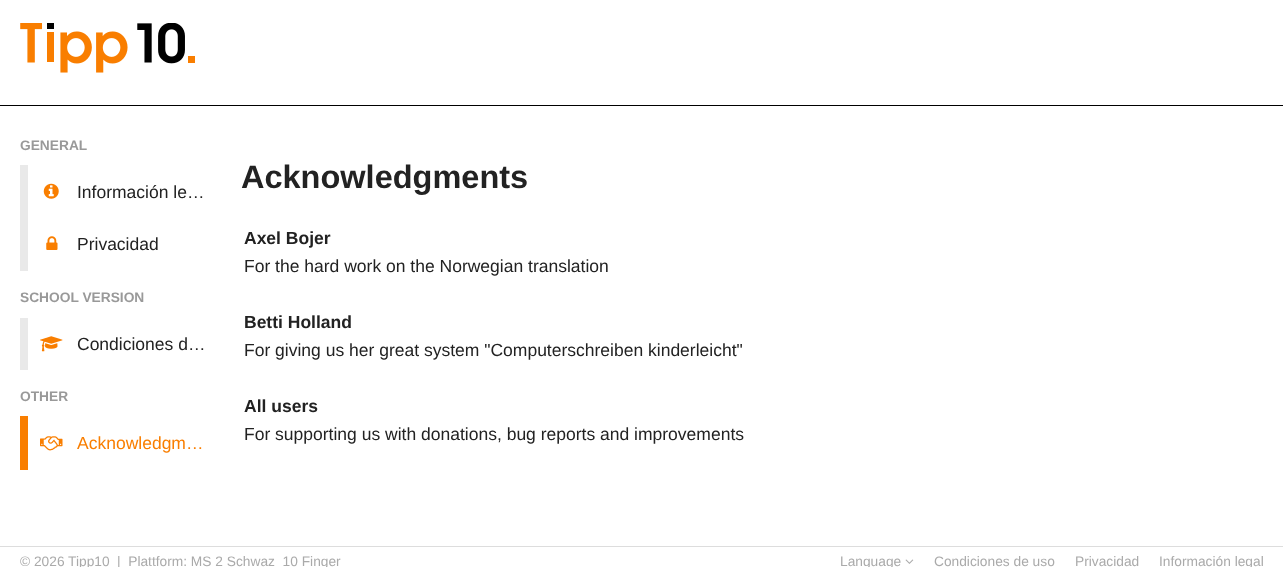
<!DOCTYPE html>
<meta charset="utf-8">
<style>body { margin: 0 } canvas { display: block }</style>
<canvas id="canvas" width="1283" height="567"></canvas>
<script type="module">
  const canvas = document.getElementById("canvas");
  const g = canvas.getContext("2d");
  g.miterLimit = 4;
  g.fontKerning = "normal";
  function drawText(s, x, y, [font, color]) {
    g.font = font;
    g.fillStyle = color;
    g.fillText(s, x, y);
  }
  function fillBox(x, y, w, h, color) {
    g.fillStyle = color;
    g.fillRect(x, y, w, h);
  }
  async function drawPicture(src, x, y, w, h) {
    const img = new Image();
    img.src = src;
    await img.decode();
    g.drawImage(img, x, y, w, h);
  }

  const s1 = ["bold 13.75px Liberation Sans", "#999999"];
  const s2 = ["17.5px Liberation Sans", "#222222"];
  const s3 = ["17.5px Liberation Sans", "#F97E00"];
  const s4 = ["bold 32.5px Liberation Sans", "#222222"];
  const s5 = ["bold 17.5px Liberation Sans", "#222222"];
  const s6 = ["13.75px Liberation Sans", "#AAAAAA"];

  fillBox(0, 0, 1283, 567, "#FFFFFF");
  await drawPicture("pic1.png", 20, 23, 175, 50);
  fillBox(0, 105, 1283, 1, "#000000");
  drawText("GENERAL", 20, 150, s1);
  fillBox(20, 165, 8, 106, "#E9E9E9");
  await drawPicture("pic2.png", 43, 183, 16, 16);
  drawText("Información le…", 77, 198, s2);
  await drawPicture("pic3.png", 46, 236, 12, 14);
  drawText("Privacidad", 77, 250, s2);
  drawText("SCHOOL VERSION", 20, 302, s1);
  fillBox(20, 318, 8, 52, "#E9E9E9");
  await drawPicture("pic4.png", 40, 336, 23, 16);
  drawText("Condiciones d…", 77, 350, s2);
  drawText("OTHER", 20, 401, s1);
  fillBox(20, 416, 8, 54, "#F97E00");
  await drawPicture("pic5.png", 40, 436, 23, 15);
  drawText("Acknowledgm…", 77, 449, s3);
  drawText("Acknowledgments", 241, 188, s4);
  drawText("Axel Bojer", 244, 244, s5);
  drawText("For the hard work on the Norwegian translation", 244, 272, s2);
  drawText("Betti Holland", 244, 328, s5);
  drawText("For giving us her great system \"Computerschreiben kinderleicht\"", 244, 356, s2);
  drawText("All users", 244, 412, s5);
  drawText("For supporting us with donations, bug reports and improvements", 244, 440, s2);
  fillBox(0, 546, 1283, 1, "#DDDDDD");
  drawText("© 2026 Tipp10", 20, 566, s6);
  drawText("|  Plattform: MS 2 Schwaz_10 Finger", 117, 566, s6);
  drawText("Language", 840, 566, s6);
  await drawPicture("pic6.png", 905, 559, 9, 5);
  drawText("Condiciones de uso", 934, 566, s6);
  drawText("Privacidad", 1075, 566, s6);
  drawText("Información legal", 1159, 566, s6);
</script>
